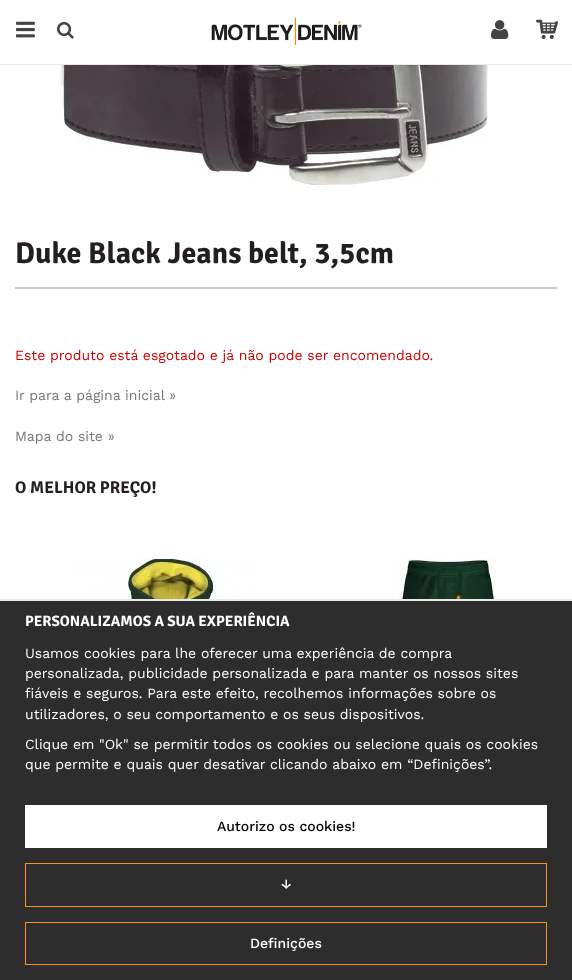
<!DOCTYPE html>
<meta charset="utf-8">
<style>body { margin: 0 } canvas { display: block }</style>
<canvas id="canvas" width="572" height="980"></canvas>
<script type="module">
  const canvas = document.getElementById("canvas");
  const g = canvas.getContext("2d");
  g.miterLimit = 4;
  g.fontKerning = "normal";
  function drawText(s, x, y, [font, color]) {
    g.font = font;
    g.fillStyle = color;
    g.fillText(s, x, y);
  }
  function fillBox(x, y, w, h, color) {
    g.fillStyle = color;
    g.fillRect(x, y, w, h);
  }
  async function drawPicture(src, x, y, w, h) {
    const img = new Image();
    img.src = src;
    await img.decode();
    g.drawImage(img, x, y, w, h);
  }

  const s1 = ["bold 30px Signika Negative", "#231F20"];
  const s2 = ["14px Work Sans", "#CC0000"];
  const s3 = ["14px Work Sans", "#777777"];
  const s4 = ["bold 17px Signika Negative", "#231F20"];
  const s5 = ["bold 15px Signika Negative", "#FFFFFF"];
  const s6 = ["14px Work Sans", "#FFFFFF"];
  const s7 = ["500 14px Work Sans", "#000000"];
  const s8 = ["500 14px Work Sans", "#FFFFFF"];

  fillBox(0, 0, 572, 980, "#FFFFFF");
  fillBox(0, 64, 572, 1, "#E9E9E9");
  await drawPicture("pic1.png", 16, 21, 19, 17);
  await drawPicture("pic2.png", 57, 21, 17, 18);
  await drawPicture("pic3.png", 211, 17, 151, 29);
  await drawPicture("pic4.png", 491, 20, 18, 19);
  await drawPicture("pic5.png", 536, 19, 22, 20);
  await drawPicture("pic6.png", 60, 65, 429, 123);
  drawText("Duke Black Jeans belt, 3,5cm", 15, 263, s1);
  fillBox(15, 287, 542, 2, "#CCCCCC");
  drawText("Este produto está esgotado e já não pode ser encomendado.", 15, 360, s2);
  drawText("Ir para a página inicial »", 15, 400, s3);
  drawText("Mapa do site »", 15, 441, s3);
  drawText("O MELHOR PREÇO!", 15, 493, s4);
  await drawPicture("pic7.png", 76, 559, 181, 40);
  await drawPicture("pic8.png", 399, 559, 98, 40);
  fillBox(0, 601, 572, 379, "#2D2D2D");
  fillBox(0, 599, 572, 2, "#E9E9E9");
  drawText("PERSONALIZAMOS A SUA EXPERIÊNCIA", 25, 626, s5);
  drawText("Usamos cookies para lhe oferecer uma experiência de compra", 25, 658, s6);
  drawText("personalizada, publicidade personalizada e para manter os nossos sites", 25, 678, s6);
  drawText("fiáveis e seguros. Para este efeito, recolhemos informações sobre os", 25, 698, s6);
  drawText("utilizadores, o seu comportamento e os seus dispositivos.", 25, 719, s6);
  drawText("Clique em \"Ok\" se permitir todos os cookies ou selecione quais os cookies", 25, 749, s6);
  drawText("que permite e quais quer desativar clicando abaixo em “Definições”.", 25, 769, s6);
  fillBox(25, 805, 522, 43, "#FFFFFF");
  drawText("Autorizo os cookies!", 217, 831, s7);
  g.strokeStyle = "#F7921C";
  g.strokeRect(25.5, 863.5, 521, 43);
  drawText("↓", 281, 889, s8);
  g.strokeRect(25.5, 922.5, 521, 42);
  drawText("Definições", 250, 948, s8);
</script>
